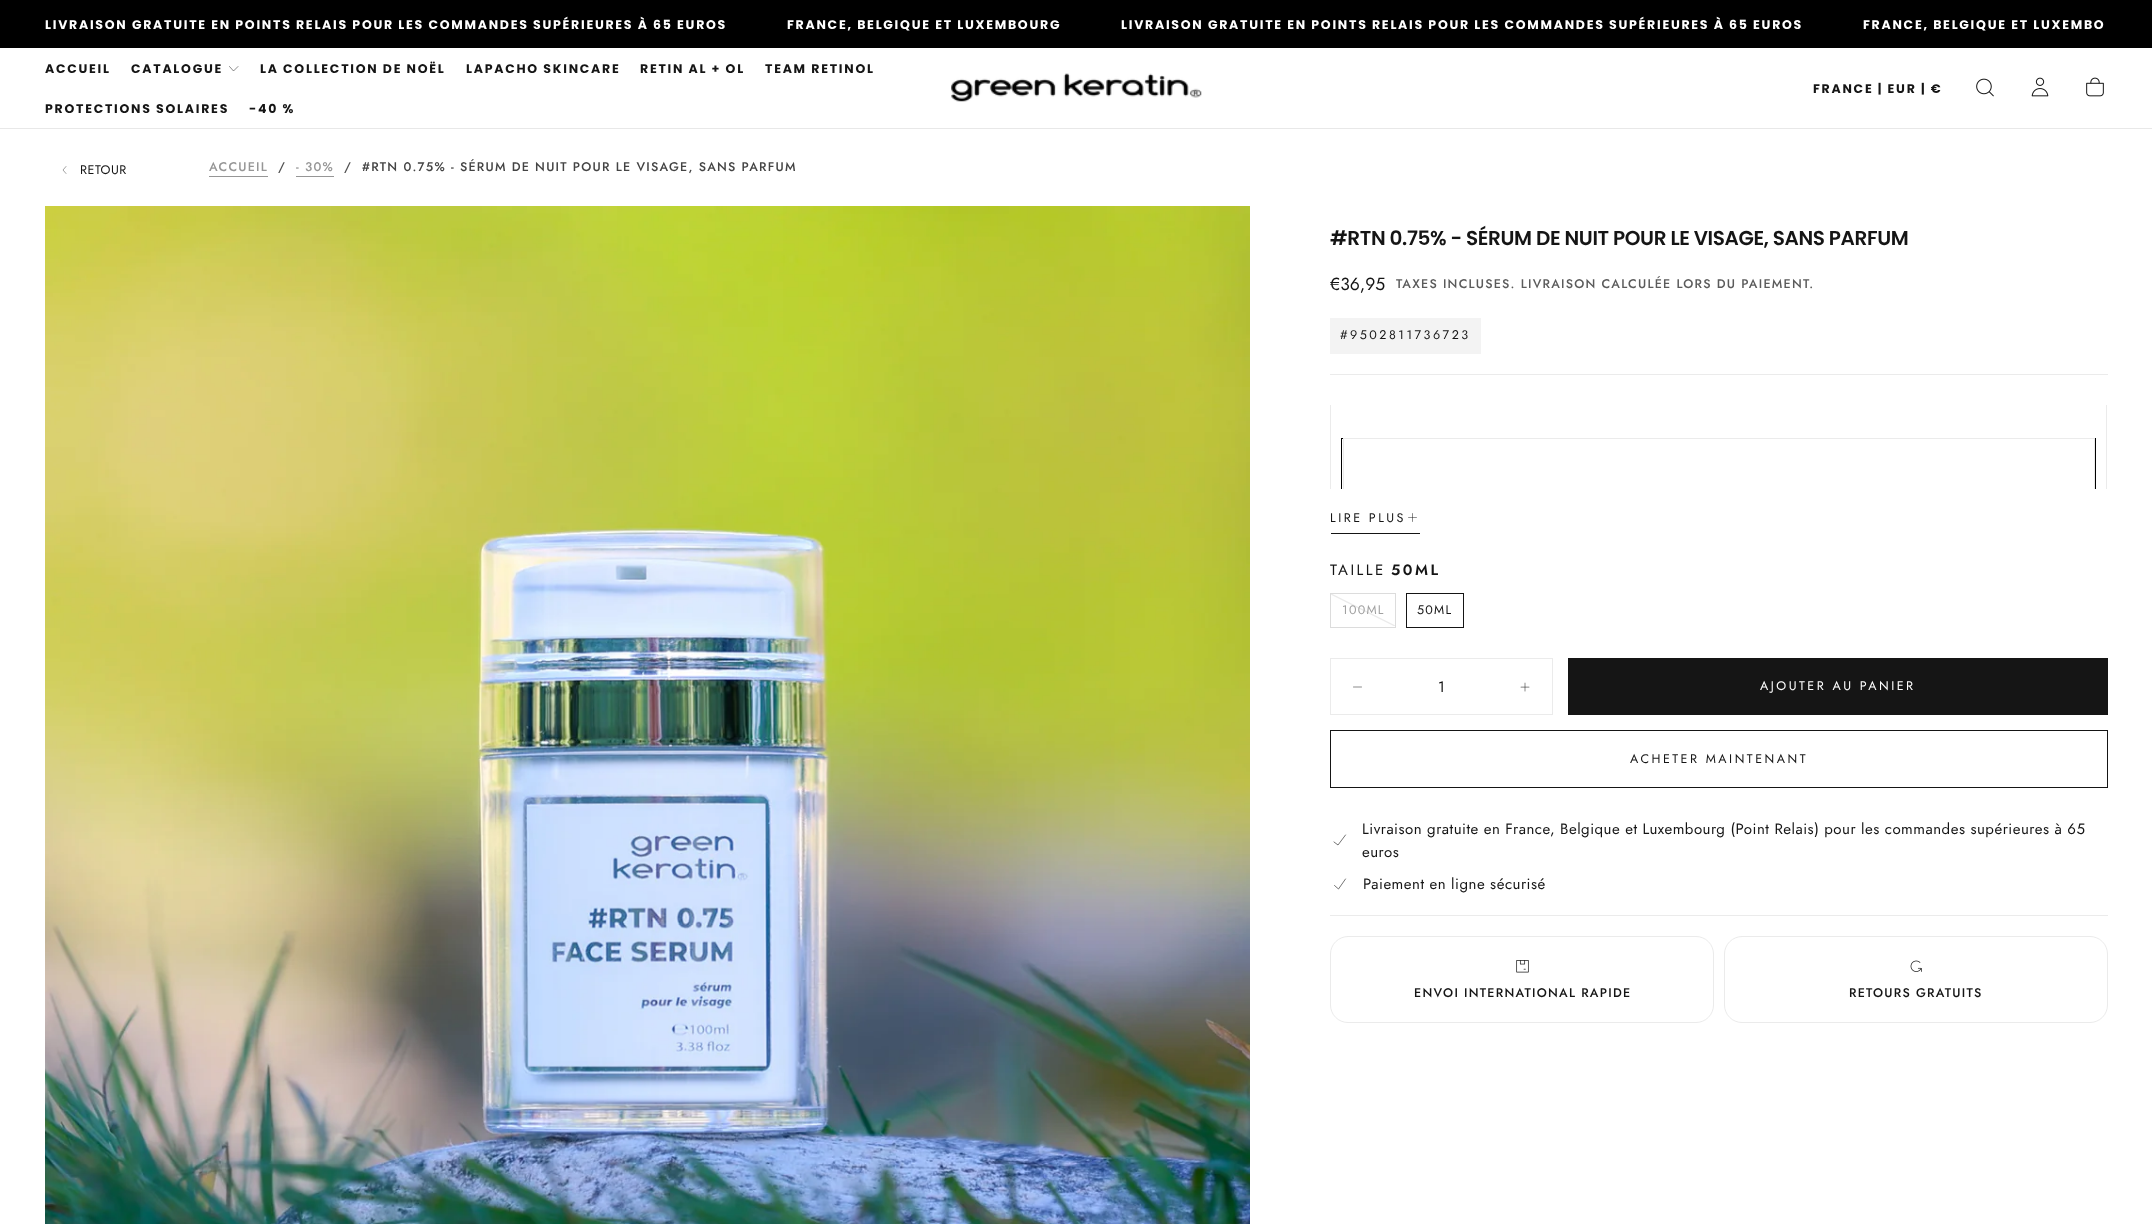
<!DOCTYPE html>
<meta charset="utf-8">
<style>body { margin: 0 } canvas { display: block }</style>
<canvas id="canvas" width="2152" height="1224"></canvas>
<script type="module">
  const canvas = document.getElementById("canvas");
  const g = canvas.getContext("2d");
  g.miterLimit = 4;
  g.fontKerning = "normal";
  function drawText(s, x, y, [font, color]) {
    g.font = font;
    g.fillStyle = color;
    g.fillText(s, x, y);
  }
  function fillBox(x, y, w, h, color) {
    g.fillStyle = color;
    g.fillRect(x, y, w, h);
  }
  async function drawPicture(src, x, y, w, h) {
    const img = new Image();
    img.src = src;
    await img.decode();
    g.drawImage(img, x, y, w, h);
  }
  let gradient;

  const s1 = ["bold 12.5px Poppins", "#FFFFFF"];
  const s2 = ["bold 12.5px Poppins", "#151515"];
  const s3 = ["12.5px Jost", "#151515"];
  const s4 = ["500 12.5px Jost", "#969696"];
  const s5 = ["500 12.5px Jost", "#505050"];
  const s6 = ["500 12.5px Jost", "#444444"];
  const s7 = ["600 20px Poppins", "#151515"];
  const s8 = ["17.5px Jost", "#151515"];
  const s9 = ["500 12.5px Jost", "#5B5B5B"];
  const s10 = ["15px Jost", "#151515"];
  const s11 = ["600 15px Jost", "#151515"];
  const s12 = ["12.5px Jost", "#A1A1A1"];
  const s13 = ["12.5px Jost", "#FFFFFF"];
  const s14 = ["500 12.5px Jost", "#151515"];

  fillBox(0, 0, 2152, 1224, "#FFFFFF");
  fillBox(0, 0, 2152, 48, "#000000");
  g.letterSpacing = "1.75px";
  drawText("LIVRAISON GRATUITE EN POINTS RELAIS POUR LES COMMANDES SUPÉRIEURES À 65 EUROS", 45, 29, s1);
  drawText("FRANCE, BELGIQUE ET LUXEMBOURG", 787, 29, s1);
  drawText("LIVRAISON GRATUITE EN POINTS RELAIS POUR LES COMMANDES SUPÉRIEURES À 65 EUROS", 1121, 29, s1);
  drawText("FRANCE, BELGIQUE ET LUXEMBO", 1863, 29, s1);
  fillBox(0, 128, 2152, 1, "#E8E8E8");
  drawText("ACCUEIL", 45, 73, s2);
  drawText("CATALOGUE", 131, 73, s2);
  g.beginPath();
  g.moveTo(238, 66.5);
  g.lineTo(233.5, 71);
  g.lineTo(229.5, 66.5);
  g.strokeStyle = "#151515";
  g.lineWidth = 0.5;
  g.lineCap = "round";
  g.lineJoin = "round";
  g.stroke();
  drawText("LA COLLECTION DE NOËL", 260, 73, s2);
  drawText("LAPACHO SKINCARE", 466, 73, s2);
  drawText("RETIN AL + OL", 640, 73, s2);
  drawText("TEAM RETINOL", 765, 73, s2);
  drawText("PROTECTIONS SOLAIRES", 45, 113, s2);
  drawText("-40 %", 249, 113, s2);
  await drawPicture("pic1.png", 951, 73, 251, 29);
  drawText("FRANCE | EUR | €", 1813, 93, s2);
  await drawPicture("pic2.png", 1976, 78, 18, 19);
  await drawPicture("pic3.png", 2031, 77, 18, 20);
  await drawPicture("pic4.png", 2086, 77, 18, 20);
  g.beginPath();
  g.moveTo(66, 173.5);
  g.lineTo(63, 170);
  g.lineTo(66, 166.5);
  g.lineWidth = 0.4;
  g.stroke();
  g.letterSpacing = "0.5px";
  drawText("RETOUR", 80, 174, s3);
  g.letterSpacing = "1.25px";
  drawText("ACCUEIL", 209, 171, s4);
  fillBox(209, 176, 59, 1, "#969696");
  drawText("/", 278, 171, s5);
  drawText("- 30%", 296, 171, s4);
  fillBox(296, 176, 38, 1, "#969696");
  drawText("/", 344, 171, s5);
  drawText("#RTN 0.75% - SÉRUM DE NUIT POUR LE VISAGE, SANS PARFUM", 362, 171, s6);
  await drawPicture("pic5.png", 45, 206, 1205, 1018);
  g.letterSpacing = "-0.4px";
  drawText("#RTN 0.75% - SÉRUM DE NUIT POUR LE VISAGE, SANS PARFUM", 1330, 245, s7);
  g.letterSpacing = "0px";
  drawText("€36,95", 1330, 290, s8);
  g.letterSpacing = "1.25px";
  drawText("TAXES INCLUSES. LIVRAISON CALCULÉE LORS DU PAIEMENT.", 1396, 288, s9);
  fillBox(1330, 318, 151, 36, "#F3F3F3");
  g.letterSpacing = "2.5px";
  drawText("#9502811736723", 1340, 339, s3);
  fillBox(1330, 374, 778, 1, "#EBEBEB");
  fillBox(2106, 405, 1, 84, "#EBEBEB");
  fillBox(1330, 405, 1, 84, "#EBEBEB");
  drawText("TAILLE", 1330, 575, s10);
  g.save();
  g.beginPath();
  g.rect(1330, 405, 778, 84);
  g.clip();
  g.strokeStyle = "#000000";
  g.lineWidth = 1;
  g.lineJoin = "miter";
  g.strokeRect(1341.5, 438.5, 754, 181);
  g.restore();
  fillBox(1343, 438, 752, 1, "#EBEBEB");
  fillBox(2094, 438, 1, 51, "#EBEBEB");
  fillBox(1343, 438, 1, 51, "#EBEBEB");
  drawText("LIRE PLUS", 1330, 522, s3);
  await drawPicture("pic6.png", 1408, 513, 9, 9);
  fillBox(1331, 533, 89, 1, "#151515");
  drawText("50ML", 1391, 575, s11);
  g.strokeStyle = "#DCDCDC";
  g.lineWidth = 1;
  g.lineJoin = "miter";
  g.strokeRect(1330.5, 593.5, 65, 34);
  gradient = g.createLinearGradient(1350, 636, 1376, 584);
  gradient.addColorStop(0.48, "rgba(21, 21, 21, 0)");
  gradient.addColorStop(0.5, "rgba(21, 21, 21, 0.1)");
  gradient.addColorStop(0.52, "rgba(21, 21, 21, 0)");
  g.fillStyle = gradient;
  g.fillRect(1331, 594, 64, 32);
  g.letterSpacing = "1.25px";
  drawText("100ML", 1342, 614, s12);
  g.strokeStyle = "#151515";
  g.strokeRect(1406.5, 593.5, 57, 34);
  drawText("50ML", 1417, 614, s3);
  g.strokeStyle = "#EBEBEB";
  g.strokeRect(1330.5, 658.5, 222, 56);
  g.beginPath();
  g.moveTo(1353.5, 687);
  g.lineTo(1361.5, 687);
  g.strokeStyle = "#151515";
  g.lineWidth = 0.5;
  g.stroke();
  g.letterSpacing = "0px";
  drawText("1", 1438, 692, s10);
  await drawPicture("pic7.png", 1520, 682, 10, 10);
  fillBox(1568, 658, 540, 57, "#151515");
  g.letterSpacing = "2.5px";
  drawText("AJOUTER AU PANIER", 1760, 690, s13);
  g.lineWidth = 1;
  g.strokeRect(1330.5, 730.5, 777, 57);
  drawText("ACHETER MAINTENANT", 1630, 763, s3);
  g.beginPath();
  g.moveTo(1334, 842);
  g.lineTo(1338, 845);
  g.lineTo(1345.5, 835);
  g.moveTo(1334.5, 885.5);
  g.lineTo(1338.5, 889);
  g.lineTo(1345.5, 879);
  g.lineWidth = 0.6;
  g.lineJoin = "round";
  g.stroke();
  g.letterSpacing = "0.5px";
  drawText("Livraison gratuite en France, Belgique et Luxembourg (Point Relais) pour les commandes supérieures à 65", 1362, 834, s10);
  drawText("euros", 1362, 857, s10);
  drawText("Paiement en ligne sécurisé", 1363, 889, s10);
  fillBox(1330, 915, 778, 1, "#EBEBEB");
  g.beginPath();
  g.roundRect(1330.5, 936.5, 383, 86, 17.5);
  g.strokeStyle = "#EBEBEB";
  g.lineWidth = 1;
  g.lineJoin = "miter";
  g.stroke();
  await drawPicture("pic8.png", 1516, 960, 13, 13);
  g.letterSpacing = "1.25px";
  drawText("ENVOI INTERNATIONAL RAPIDE", 1414, 997, s14);
  g.beginPath();
  g.roundRect(1724.5, 936.5, 383, 86, 17.5);
  g.stroke();
  await drawPicture("pic9.png", 1910, 960, 12, 12);
  drawText("RETOURS GRATUITS", 1849, 997, s14);
</script>
